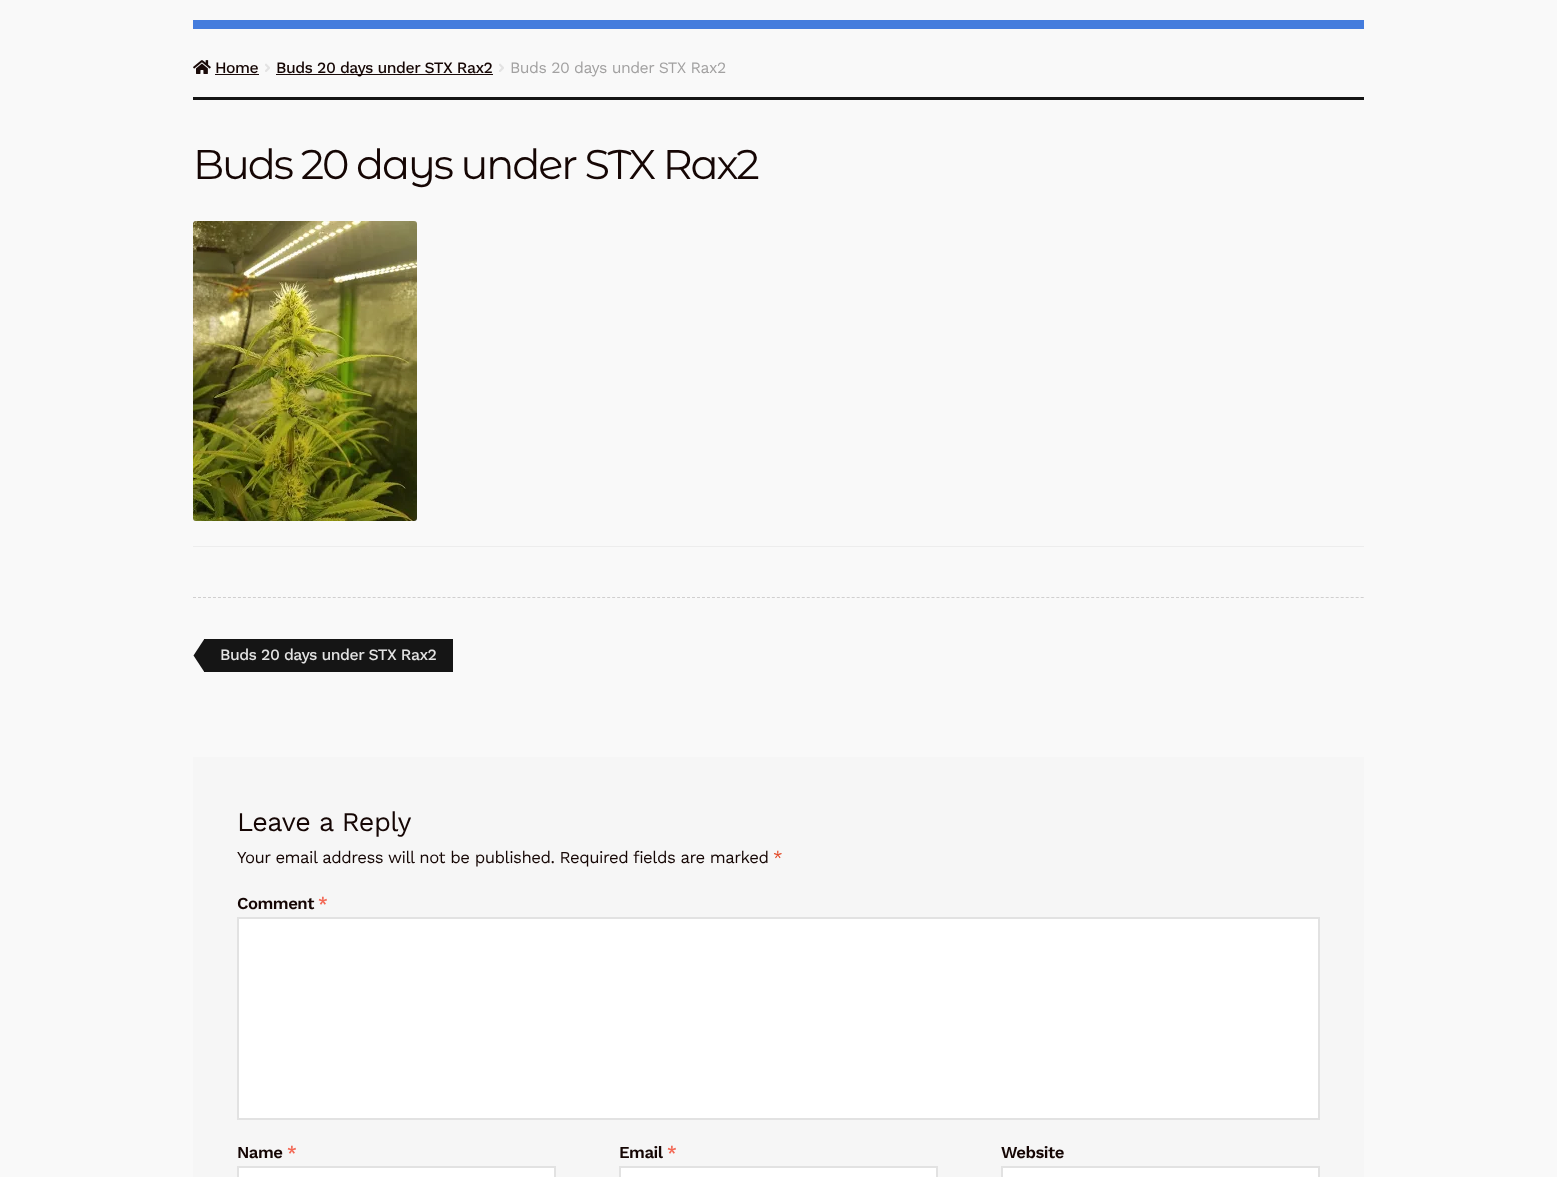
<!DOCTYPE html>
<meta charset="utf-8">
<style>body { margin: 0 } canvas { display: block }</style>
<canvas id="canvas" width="1557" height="1177"></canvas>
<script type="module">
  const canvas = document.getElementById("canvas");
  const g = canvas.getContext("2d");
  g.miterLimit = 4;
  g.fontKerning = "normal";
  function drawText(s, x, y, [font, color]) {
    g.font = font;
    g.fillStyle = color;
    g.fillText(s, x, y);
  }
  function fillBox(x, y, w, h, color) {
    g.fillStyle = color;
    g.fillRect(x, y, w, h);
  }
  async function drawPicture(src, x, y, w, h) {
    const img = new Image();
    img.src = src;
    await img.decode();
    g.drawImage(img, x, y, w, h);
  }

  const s1 = ["500 15.8px Work Sans", "#150604"];
  const s2 = ["15.8px Work Sans", "#A2A1A1"];
  const s3 = ["41.4px Montserrat Alternates", "#150604"];
  const s4 = ["500 15.8px Work Sans", "#E3E3E3"];
  const s5 = ["27px Work Sans", "#150604"];
  const s6 = ["16.75px Work Sans", "#150604"];
  const s7 = ["16.75px Work Sans", "#E2401C"];
  const s8 = ["600 16.75px Work Sans", "#150604"];
  const s9 = ["600 16.75px Work Sans", "#F36855"];

  fillBox(0, 0, 1557, 1177, "#F9F9F9");
  fillBox(193, 20, 1171, 9, "#447CDD");
  fillBox(193, 97, 1171, 3, "#151515");
  await drawPicture("pic1.png", 193, 60, 18, 14);
  g.letterSpacing = "-0.5px";
  drawText("Home", 215, 73, s1);
  fillBox(215, 74, 44, 1, "#1A0B09");
  await drawPicture("pic2.png", 265, 63, 5, 9);
  fillBox(276, 74, 217, 1, "#1A0B09");
  drawText("Buds 20 days under STX Rax2", 276, 73, s1);
  await drawPicture("pic2.png", 499, 63, 5, 9);
  drawText("Buds 20 days under STX Rax2", 510, 73, s2);
  g.letterSpacing = "-2.1px";
  drawText("Buds 20 days under STX Rax2", 193, 179, s3);
  await drawPicture("pic3.png", 193, 221, 224, 300);
  fillBox(193, 546, 1171, 1, "#EDEDED");
  g.beginPath();
  g.moveTo(193, 597.5);
  g.lineTo(1364, 597.5);
  g.strokeStyle = "#D0CFCF";
  g.setLineDash([3, 1.99]);
  g.stroke();
  fillBox(204, 639, 249, 33, "#151515");
  g.beginPath();
  g.moveTo(204, 639.5);
  g.lineTo(204, 671.5);
  g.lineTo(193.5, 655.5);
  g.closePath();
  g.fill();
  g.letterSpacing = "-0.5px";
  drawText("Buds 20 days under STX Rax2", 220, 660, s4);
  fillBox(193, 757, 1171, 420, "#F6F6F6");
  drawText("Leave a Reply", 237, 831, s5);
  drawText("Your email address will not be published. Required fields are marked", 237, 863, s6);
  drawText("*", 773, 863, s7);
  drawText("Comment", 237, 909, s8);
  drawText("*", 318, 909, s9);
  g.fillStyle = "#FFFFFF";
  g.beginPath();
  g.rect(238, 918, 1081, 201);
  g.fill();
  g.strokeStyle = "#E2E2E2";
  g.lineWidth = 2;
  g.setLineDash([]);
  g.stroke();
  drawText("Name", 237, 1158, s8);
  drawText("*", 287, 1158, s9);
  g.fillStyle = "#FFFFFF";
  g.beginPath();
  g.rect(238, 1167, 317, 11);
  g.fill();
  g.stroke();
  drawText("Email", 619, 1158, s8);
  drawText("*", 667, 1158, s9);
  g.fillStyle = "#FFFFFF";
  g.beginPath();
  g.rect(620, 1167, 317, 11);
  g.fill();
  g.stroke();
  drawText("Website", 1001, 1158, s8);
  g.fillStyle = "#FFFFFF";
  g.beginPath();
  g.rect(1002, 1167, 317, 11);
  g.fill();
  g.stroke();
</script>
